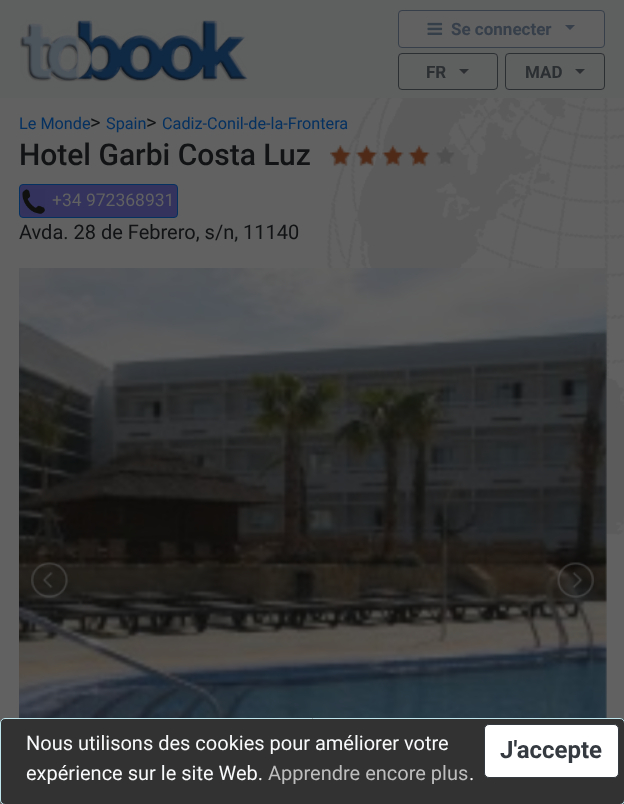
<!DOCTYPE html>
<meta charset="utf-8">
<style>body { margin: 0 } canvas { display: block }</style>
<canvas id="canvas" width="624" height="804"></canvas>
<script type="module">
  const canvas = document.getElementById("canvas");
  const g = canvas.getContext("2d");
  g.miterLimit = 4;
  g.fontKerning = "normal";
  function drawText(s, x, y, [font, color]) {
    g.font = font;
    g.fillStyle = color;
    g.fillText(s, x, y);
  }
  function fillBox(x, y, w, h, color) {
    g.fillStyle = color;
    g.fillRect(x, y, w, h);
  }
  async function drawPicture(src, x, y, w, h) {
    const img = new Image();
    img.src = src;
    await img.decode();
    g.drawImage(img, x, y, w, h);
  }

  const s1 = ["bold 17px Roboto", "#363F4A"];
  const s2 = ["bold 17px Roboto", "#2C2F32"];
  const s3 = ["16.25px Roboto", "#053161"];
  const s4 = ["20px Roboto", "#111314"];
  const s5 = ["500 30px Roboto", "#111314"];
  const s6 = ["17.5px Roboto", "#616161"];
  const s7 = ["20px Roboto", "#F8F9FA"];
  const s8 = ["bold 24px Roboto", "#343A40"];
  const s9 = ["20px Roboto", "#BEBEBE"];

  fillBox(0, 0, 624, 804, "#616161");
  await drawPicture("pic1.png", 326, 98, 298, 437);
  fillBox(0, 0, 624, 98, "#5E5F5F");
  await drawPicture("pic2.png", 20, 20, 228, 62);
  g.fillStyle = "#616161";
  g.beginPath();
  g.roundRect(398.5, 10.5, 206, 37, 3.5);
  g.fill();
  g.strokeStyle = "#363F4A";
  g.stroke();
  await drawPicture("pic3.png", 427, 22, 16, 13);
  drawText("Se connecter", 451, 35, s1);
  g.beginPath();
  g.moveTo(565, 25);
  g.lineTo(575, 25);
  g.lineTo(570, 30);
  g.closePath();
  g.fill();
  g.beginPath();
  g.roundRect(398.5, 53.5, 99, 36, 3.5);
  g.strokeStyle = "#2C2F32";
  g.stroke();
  drawText("FR", 426, 78, s2);
  g.beginPath();
  g.moveTo(459, 69);
  g.lineTo(469, 69);
  g.lineTo(464, 74);
  g.closePath();
  g.fill();
  g.beginPath();
  g.roundRect(505.5, 53.5, 99, 36, 3.5);
  g.stroke();
  drawText("MAD", 525, 78, s2);
  g.beginPath();
  g.moveTo(575, 69);
  g.lineTo(585, 69);
  g.lineTo(580, 74);
  g.closePath();
  g.fill();
  drawText("Le Monde", 19, 129, s3);
  drawText(">", 90, 129, s4);
  drawText("Spain", 106, 129, s3);
  drawText(">", 146, 129, s4);
  drawText("Cadiz-Conil-de-la-Frontera", 162, 129, s3);
  drawText("Hotel Garbi Costa Luz", 19, 165, s5);
  await drawPicture("pic4.png", 330, 145, 125, 22);
  g.fillStyle = "#33335E";
  g.beginPath();
  g.roundRect(19.5, 184.5, 158, 33, 3.5);
  g.fill();
  g.strokeStyle = "#053161";
  g.stroke();
  await drawPicture("pic5.png", 22, 189, 23, 25);
  drawText("+34 972368931", 52, 206, s6);
  drawText("Avda. 28 de Febrero, s/n, 11140", 19, 239, s4);
  await drawPicture("pic6.png", 19, 268, 588, 450);
  await drawPicture("pic7.png", 31, 562, 37, 36);
  await drawPicture("pic8.png", 557, 562, 37, 36);
  g.fillStyle = "#323232";
  g.beginPath();
  g.roundRect(0.5, 718.5, 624, 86, 4.5);
  g.fill();
  g.strokeStyle = "#BEE5EB";
  g.stroke();
  drawText("Nous utilisons des cookies pour améliorer votre", 26, 750, s7);
  g.fillStyle = "#FFFFFF";
  g.beginPath();
  g.roundRect(484.5, 724.5, 134, 53, 4.5);
  g.fill();
  g.strokeStyle = "#343A40";
  g.stroke();
  drawText("J'accepte", 500, 758, s8);
  drawText("expérience sur le site Web.", 26, 780, s7);
  drawText("Apprendre encore plus", 268, 780, s9);
  drawText(".", 469, 780, s7);
</script>
